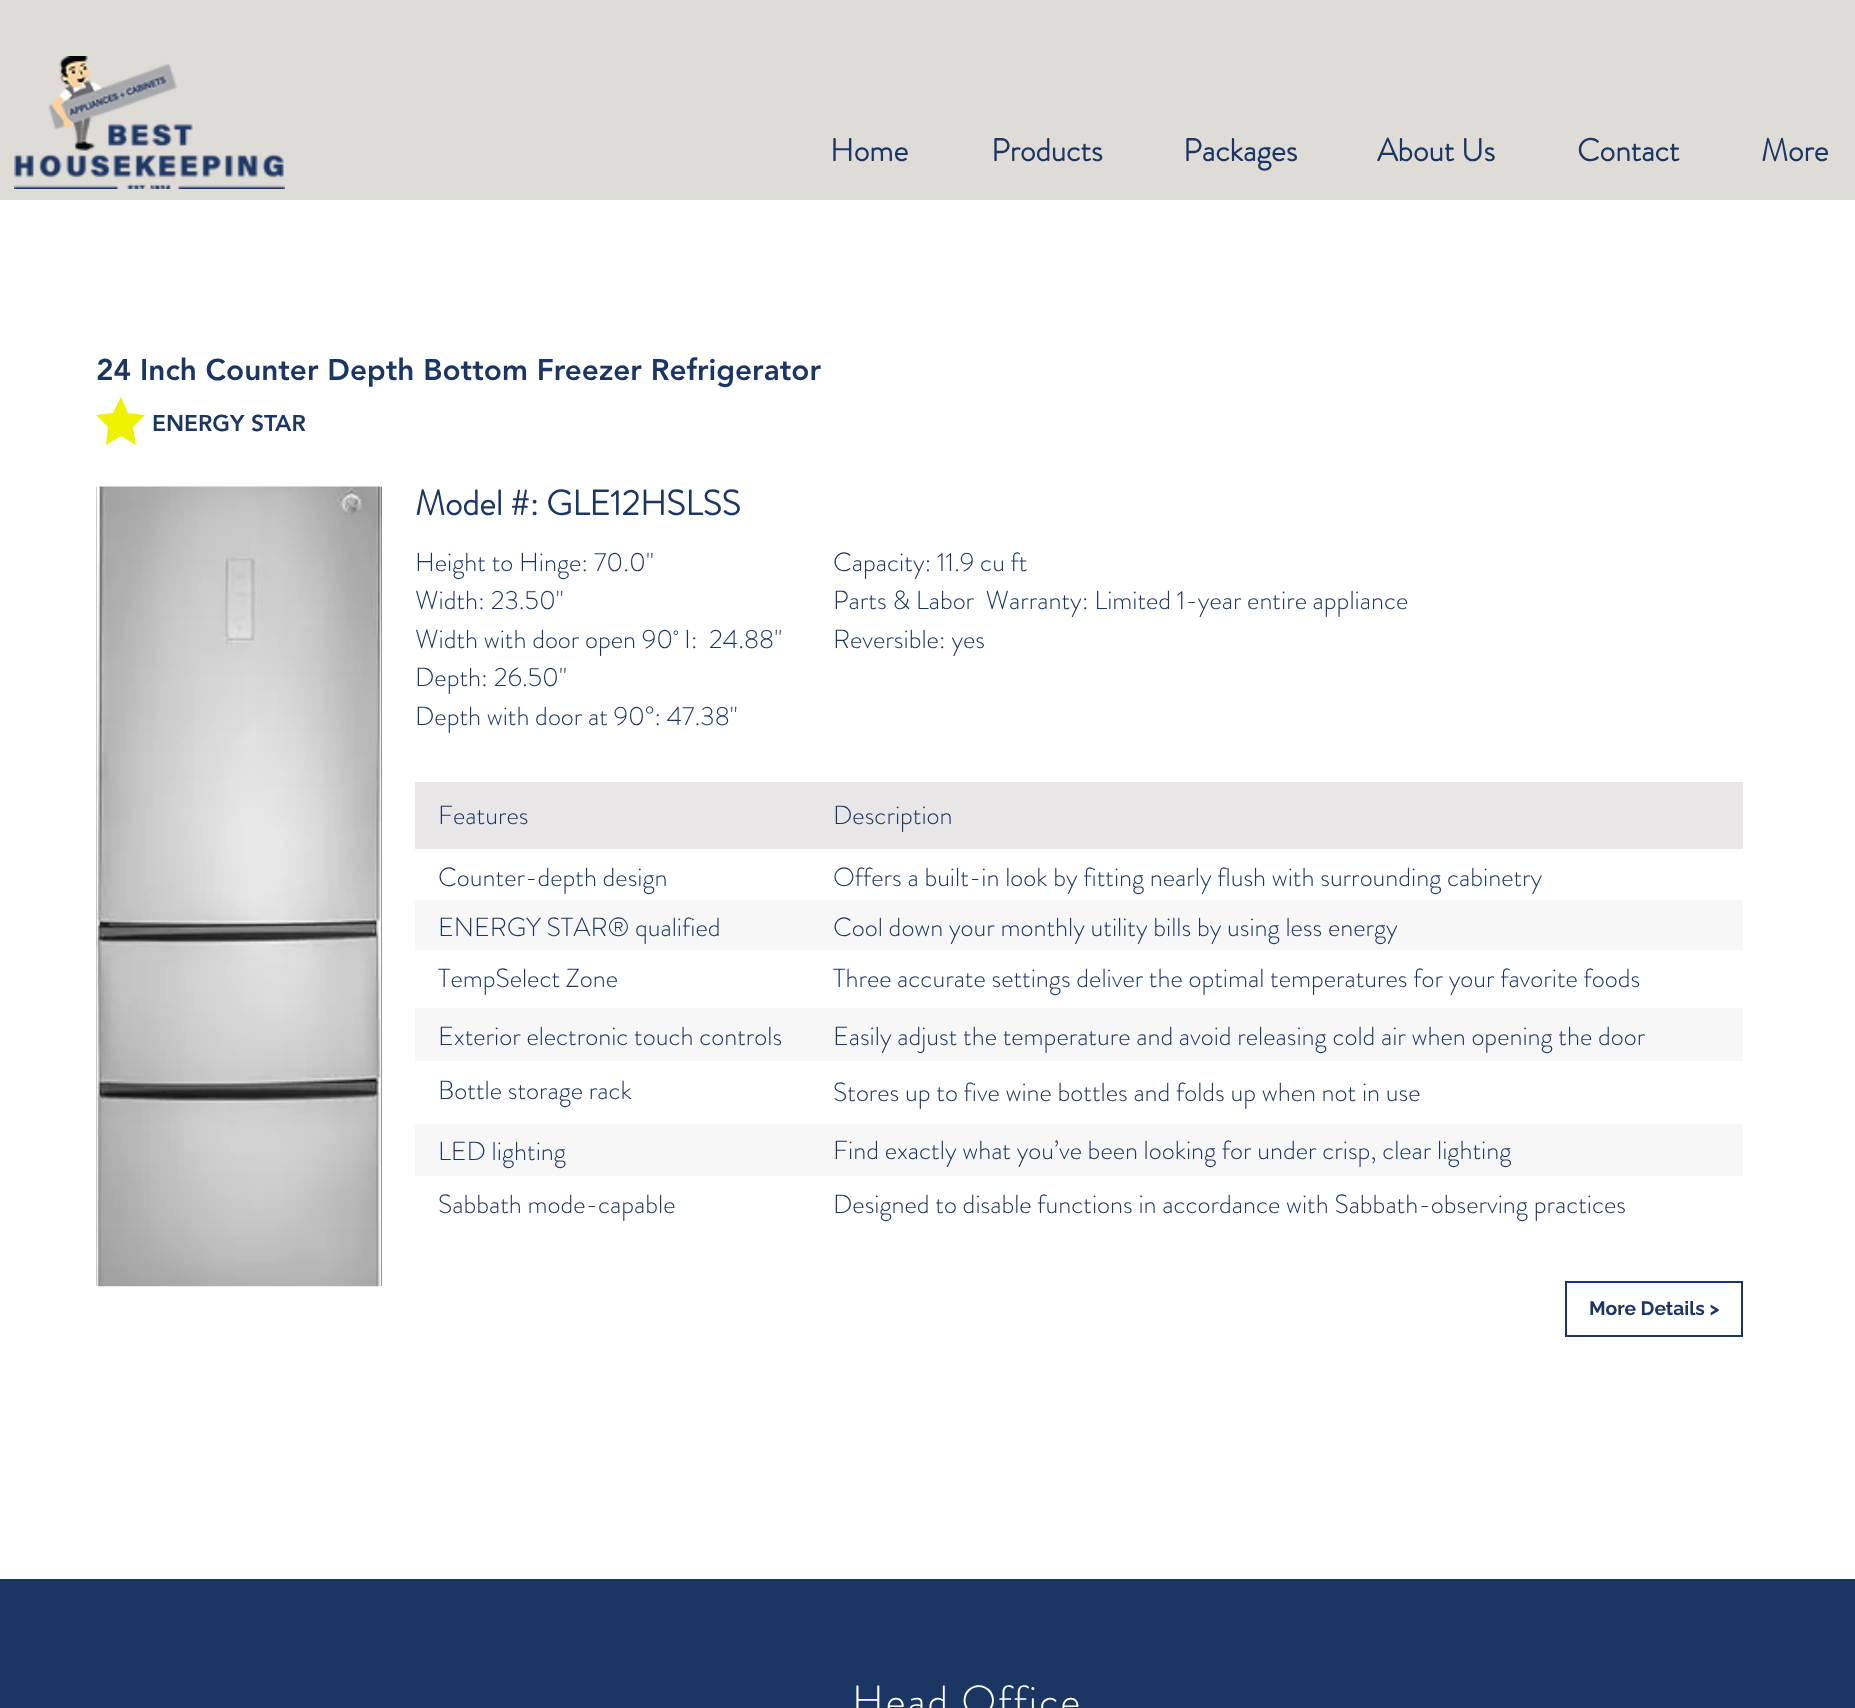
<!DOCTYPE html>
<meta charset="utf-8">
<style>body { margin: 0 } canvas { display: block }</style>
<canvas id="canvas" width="1855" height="1708"></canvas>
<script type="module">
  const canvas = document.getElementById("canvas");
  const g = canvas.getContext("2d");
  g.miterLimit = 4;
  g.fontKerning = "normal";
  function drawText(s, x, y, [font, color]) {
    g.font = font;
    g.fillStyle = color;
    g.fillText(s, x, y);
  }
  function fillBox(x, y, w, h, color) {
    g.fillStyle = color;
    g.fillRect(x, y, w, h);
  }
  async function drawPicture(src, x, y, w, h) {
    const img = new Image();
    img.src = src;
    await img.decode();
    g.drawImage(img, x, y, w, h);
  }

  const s1 = ["bold 31.5px 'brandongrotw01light'", "#1C3664"];
  const s2 = ["900 29.75px 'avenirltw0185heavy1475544'", "#1C3664"];
  const s3 = ["900 22.75px 'avenirltw0185heavy1475544'", "#1C3664"];
  const s4 = ["bold 35px 'brandongrotw01light'", "#1C3664"];
  const s5 = ["300 26.25px 'brandongrotw01light'", "#1C3664"];
  const s6 = ["bold 19.25px Raleway", "#1C3664"];
  const s7 = ["300 42px 'brandongrotw01light'", "#FFFFFF"];

  fillBox(0, 0, 1855, 1708, "#FFFFFF");
  fillBox(0, 0, 1855, 200, "#DFDCD8");
  await drawPicture("pic1.png", 14, 56, 271, 133);
  drawText("Home", 830, 161, s1);
  drawText("Products", 991, 161, s1);
  drawText("Packages", 1183, 161, s1);
  drawText("About Us", 1377, 161, s1);
  drawText("Contact", 1577, 161, s1);
  drawText("More", 1761, 161, s1);
  drawText("24 Inch Counter Depth Bottom Freezer Refrigerator", 96, 380, s2);
  g.fillStyle = "#EEF200";
  g.beginPath();
  g.moveTo(121, 397);
  g.lineTo(128, 413);
  g.lineTo(145, 415);
  g.lineTo(133, 427);
  g.lineTo(136, 445);
  g.lineTo(121, 436);
  g.lineTo(106, 445);
  g.lineTo(108, 427);
  g.lineTo(96, 415);
  g.lineTo(113, 413);
  g.closePath();
  g.fill();
  drawText("ENERGY STAR", 152, 431, s3);
  drawText("Model #: GLE12HSLSS", 415, 515, s4);
  drawText("Height to Hinge: 70.0\"", 415, 571, s5);
  drawText("Width: 23.50\"", 415, 609, s5);
  drawText("Width with door open 90˚ I:  24.88\"", 415, 648, s5);
  drawText("Depth: 26.50\"", 415, 686, s5);
  drawText("Depth with door at 90°: 47.38\"", 415, 725, s5);
  drawText("Capacity: 11.9 cu ft", 833, 571, s5);
  drawText("Parts & Labor  Warranty: Limited 1-year entire appliance", 833, 609, s5);
  drawText("Reversible: yes", 833, 648, s5);
  drawText("Sabbath mode-capable", 438, 1213, s5);
  drawText("Designed to disable functions in accordance with Sabbath-observing practices", 833, 1213, s5);
  g.strokeStyle = "#1C3664";
  g.lineWidth = 2;
  g.strokeRect(1566, 1282, 176, 54);
  drawText("More Details >", 1589, 1315, s6);
  fillBox(96, 487, 286, 799, "#2F2E2E");
  await drawPicture("pic2.png", 96, 486, 286, 801);
  fillBox(415, 782, 1328, 67, "#E8E6E6");
  drawText("Features", 438, 824, s5);
  drawText("Description", 833, 824, s5);
  drawText("Counter-depth design", 438, 886, s5);
  drawText("Offers a built-in look by fitting nearly flush with surrounding cabinetry", 833, 886, s5);
  fillBox(415, 900, 1328, 50, "#F7F7F7");
  drawText("ENERGY STAR® qualified", 438, 936, s5);
  drawText("Cool down your monthly utility bills by using less energy", 833, 936, s5);
  drawText("TempSelect Zone", 438, 987, s5);
  drawText("Three accurate settings deliver the optimal temperatures for your favorite foods", 833, 987, s5);
  fillBox(415, 1008, 1328, 53, "#F7F7F7");
  drawText("Exterior electronic touch controls", 438, 1045, s5);
  drawText("Easily adjust the temperature and avoid releasing cold air when opening the door", 833, 1045, s5);
  drawText("Bottle storage rack", 438, 1099, s5);
  drawText("Stores up to five wine bottles and folds up when not in use", 833, 1101, s5);
  fillBox(415, 1124, 1328, 52, "#F7F7F7");
  drawText("LED lighting", 438, 1160, s5);
  drawText("Find exactly what you’ve been looking for under crisp, clear lighting", 833, 1159, s5);
  fillBox(0, 1579, 1855, 129, "#1C3664");
  g.letterSpacing = "2.1px";
  drawText("Head Office", 852, 1715, s7);
</script>
